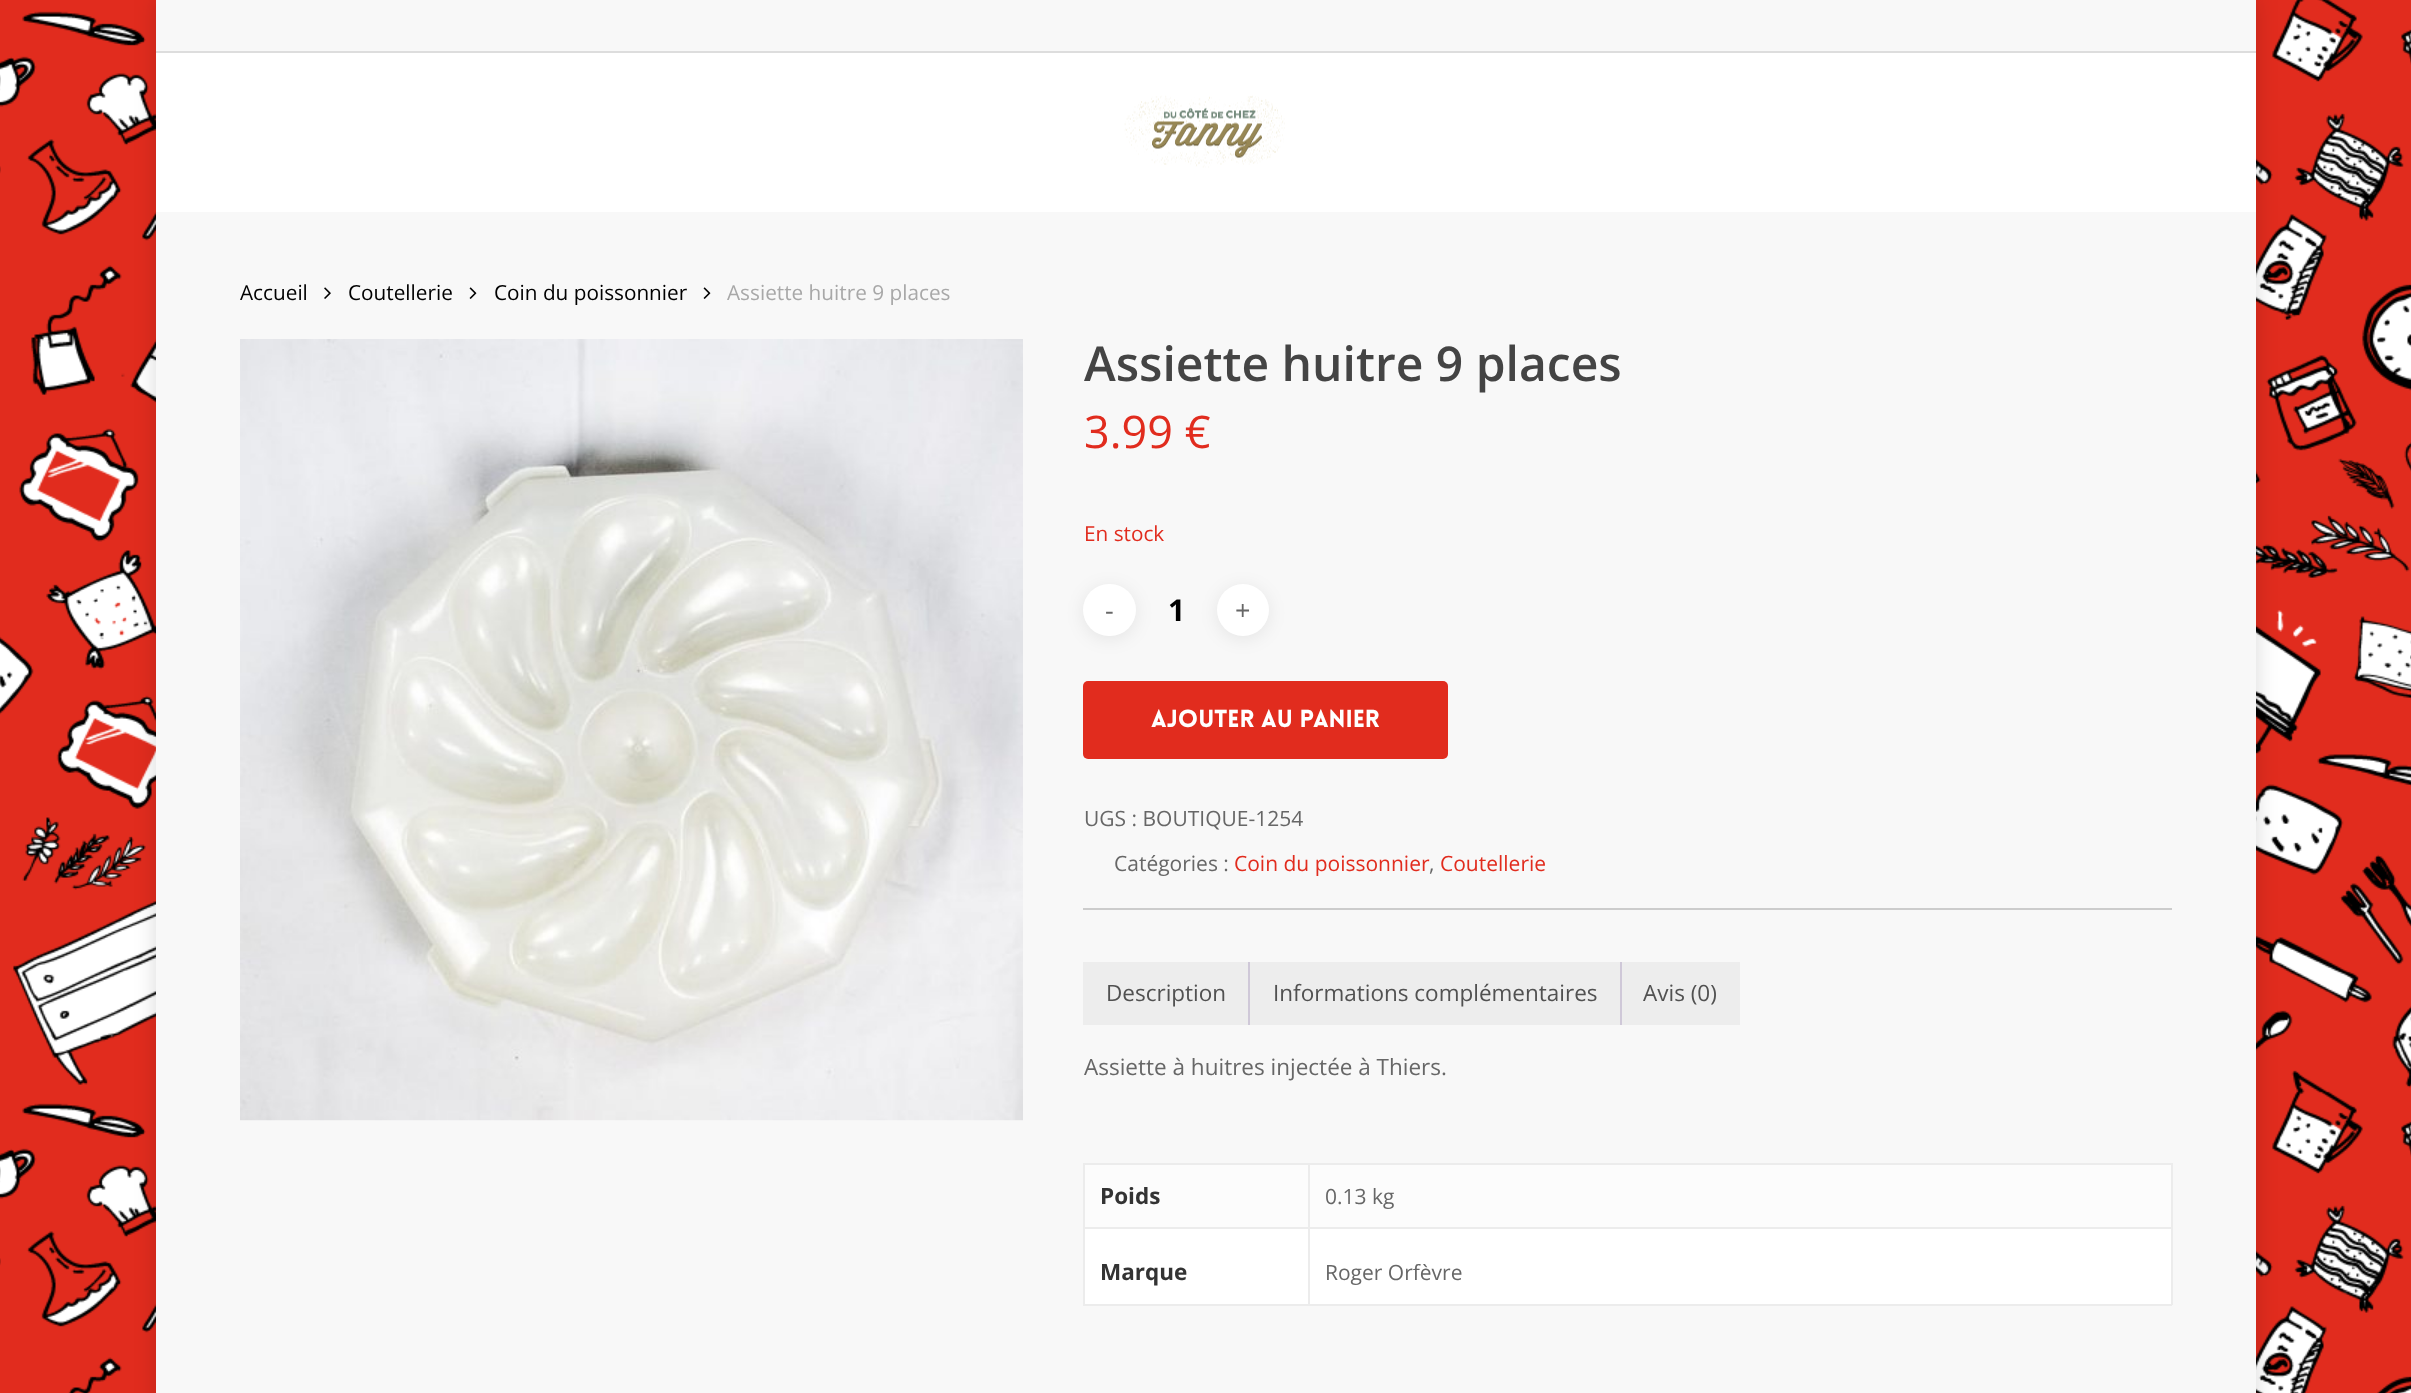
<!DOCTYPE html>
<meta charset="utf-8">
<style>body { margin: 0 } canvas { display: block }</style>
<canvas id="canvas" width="2411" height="1393"></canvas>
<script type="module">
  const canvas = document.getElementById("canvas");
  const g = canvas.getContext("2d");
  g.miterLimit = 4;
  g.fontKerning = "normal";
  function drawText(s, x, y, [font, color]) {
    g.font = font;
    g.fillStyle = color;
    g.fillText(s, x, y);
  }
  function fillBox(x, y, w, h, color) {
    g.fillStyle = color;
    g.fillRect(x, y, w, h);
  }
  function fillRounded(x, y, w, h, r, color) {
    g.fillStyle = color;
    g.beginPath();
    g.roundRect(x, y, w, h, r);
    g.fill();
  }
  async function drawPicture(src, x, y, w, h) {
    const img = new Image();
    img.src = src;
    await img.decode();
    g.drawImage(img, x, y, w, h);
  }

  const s1 = ["20.75px Open Sans", "#000000"];
  const s2 = ["20.75px Open Sans", "#A8A8A8"];
  const s3 = ["600 48px Open Sans", "#444444"];
  const s4 = ["45px Open Sans", "#E12C1E"];
  const s5 = ["20.75px Open Sans", "#E12C1E"];
  const s6 = ["27px Open Sans", "#676767"];
  const s7 = ["bold 30px Open Sans", "#000000"];
  const s8 = ["900 24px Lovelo", "#FFFFFF"];
  const s9 = ["21px Open Sans", "#676767"];
  const s10 = ["21px Open Sans", "#E12C1E"];
  const s11 = ["22.5px Open Sans", "#515151"];
  const s12 = ["22.5px Open Sans", "#676767"];
  const s13 = ["bold 22.5px Open Sans", "#333333"];

  fillBox(0, 0, 2411, 1393, "#E12C1E");
  await drawPicture("pic1.png", 0, 0, 2411, 1393);
  g.fillStyle = "rgba(0, 0, 0, 0.15)";
  g.filter = "blur(11px)";
  g.beginPath();
  g.rect(156, 0, 2100, 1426);
  g.fill();
  g.filter = "none";
  fillBox(156, 212, 2100, 1181, "#F8F8F8");
  fillBox(156, 53, 2100, 159, "#FFFFFF");
  fillBox(156, 0, 2100, 51, "#F8F8F8");
  fillBox(156, 51, 2100, 2, "#DDDDDD");
  await drawPicture("pic2.png", 1124, 95, 161, 73);
  drawText("Accueil", 240, 300, s1);
  await drawPicture("pic3.png", 324, 287, 7, 12);
  drawText("Coutellerie", 348, 300, s1);
  await drawPicture("pic4.png", 469, 287, 8, 12);
  drawText("Coin du poissonnier", 494, 300, s1);
  await drawPicture("pic4.png", 703, 287, 8, 12);
  drawText("Assiette huitre 9 places", 727, 300, s2);
  await drawPicture("pic5.png", 240, 339, 783, 782);
  drawText("Assiette huitre 9 places", 1084, 381, s3);
  drawText("3.99 €", 1084, 448, s4);
  drawText("En stock", 1084, 541, s5);
  g.fillStyle = "rgba(0, 0, 0, 0.08)";
  g.filter = "blur(9px)";
  g.beginPath();
  g.roundRect(1083, 587, 53, 52, 26);
  g.fill();
  g.filter = "none";
  fillRounded(1083, 584, 53, 52, 26, "#FFFFFF");
  drawText("-", 1105, 620, s6);
  drawText("1", 1168, 621, s7);
  g.fillStyle = "rgba(0, 0, 0, 0.08)";
  g.filter = "blur(9px)";
  g.beginPath();
  g.roundRect(1217, 587, 52, 52, 26);
  g.fill();
  g.filter = "none";
  g.fillStyle = "#FFFFFF";
  g.beginPath();
  g.arc(1243, 610, 26, 0, Math.PI * 2);
  g.fill();
  drawText("+", 1235, 620, s6);
  fillRounded(1083, 681, 365, 78, 5, "#E12C1E");
  drawText("Ajouter Au Panier", 1151, 727, s8);
  drawText("UGS : BOUTIQUE-1254", 1084, 826, s9);
  drawText("Catégories :", 1114, 871, s9);
  drawText("Coin du poissonnier", 1234, 871, s10);
  drawText(",", 1429, 871, s9);
  drawText("Coutellerie", 1440, 871, s10);
  fillBox(1083, 908, 1089, 2, "#CCCCCC");
  fillBox(1083, 962, 165, 63, "#EDEDED");
  fillBox(1248, 962, 2, 63, "#CFC8D8");
  drawText("Description", 1106, 1001, s11);
  fillBox(1250, 962, 370, 63, "#EDEDED");
  fillBox(1620, 962, 2, 63, "#CFC8D8");
  drawText("Informations complémentaires", 1273, 1001, s11);
  fillBox(1622, 962, 118, 63, "#EDEDED");
  drawText("Avis (0)", 1643, 1001, s11);
  drawText("Assiette à huitres injectée à Thiers.", 1084, 1075, s12);
  fillBox(1085, 1229, 1086, 75, "#FFFFFF");
  fillBox(1083, 1163, 1089, 2, "#ECECEC");
  fillBox(1085, 1165, 1086, 62, "#FCFCFC");
  fillBox(2171, 1163, 2, 142, "#ECECEC");
  fillBox(1308, 1304, 864, 2, "#ECECEC");
  fillBox(1308, 1227, 2, 78, "#ECECEC");
  fillBox(1308, 1227, 864, 2, "#ECECEC");
  fillBox(1308, 1163, 2, 66, "#ECECEC");
  fillBox(1083, 1304, 227, 2, "#ECECEC");
  fillBox(1083, 1227, 2, 78, "#ECECEC");
  fillBox(1083, 1227, 227, 2, "#ECECEC");
  fillBox(1083, 1163, 2, 66, "#ECECEC");
  drawText("Poids", 1100, 1204, s13);
  drawText("0.13 kg", 1325, 1204, s9);
  drawText("Marque", 1100, 1280, s13);
  drawText("Roger Orfèvre", 1325, 1280, s9);
</script>
